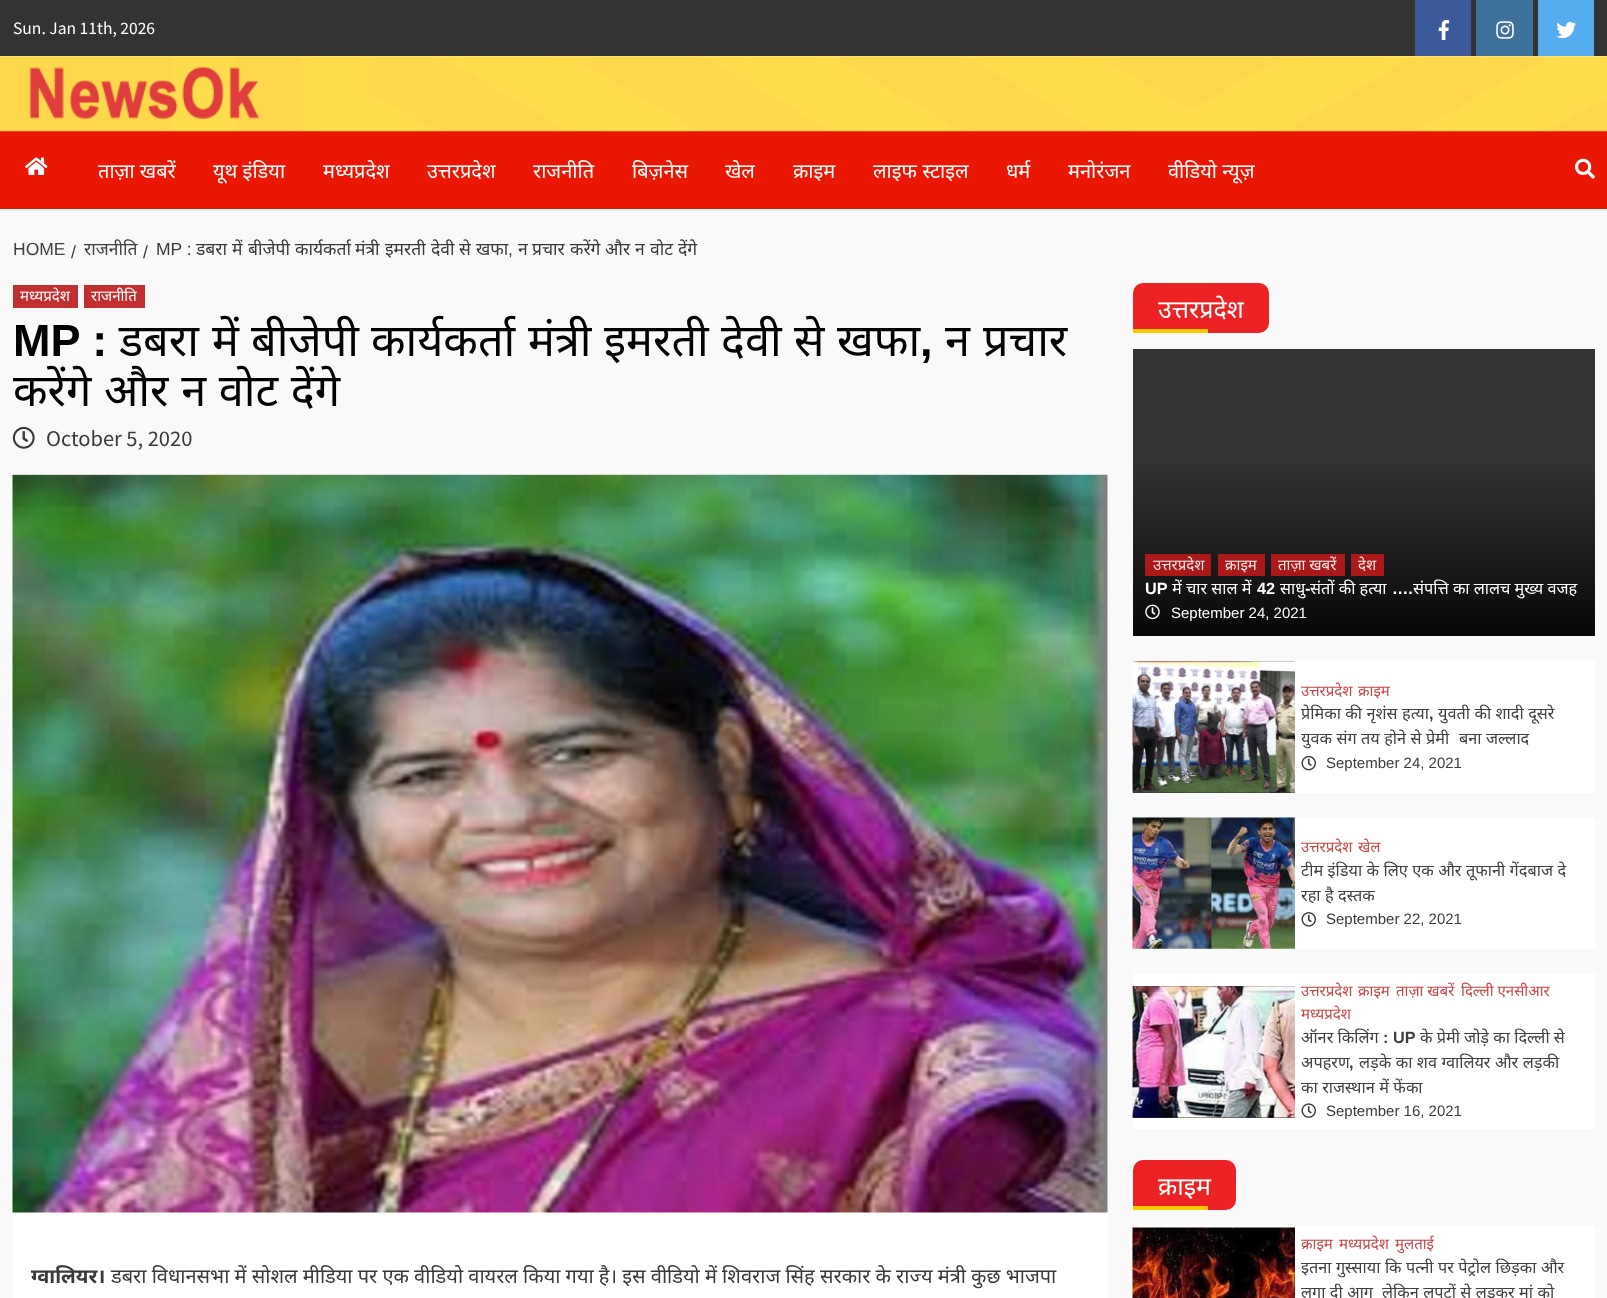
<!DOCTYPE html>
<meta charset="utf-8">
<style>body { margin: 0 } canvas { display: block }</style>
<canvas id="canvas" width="1607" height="1298"></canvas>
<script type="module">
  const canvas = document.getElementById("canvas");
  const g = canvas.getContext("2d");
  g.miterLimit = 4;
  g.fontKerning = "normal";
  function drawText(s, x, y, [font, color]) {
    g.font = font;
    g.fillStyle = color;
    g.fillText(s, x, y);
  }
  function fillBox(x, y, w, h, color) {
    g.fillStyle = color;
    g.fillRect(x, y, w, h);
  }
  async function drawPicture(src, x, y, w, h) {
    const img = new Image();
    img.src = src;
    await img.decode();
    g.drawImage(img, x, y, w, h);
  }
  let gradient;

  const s1 = ["17.5px Source Sans Pro", "#FFFFFF"];
  const s2 = ["20px Noto Sans", "#FFFFFF"];
  const s3 = ["17.5px Liberation Sans", "#404040"];
  const s4 = ["17.5px Noto Sans", "#404040"];
  const s5 = ["17.5px Liberation Sans", "#3A3A3A"];
  const s6 = ["17.5px Noto Sans", "#3A3A3A"];
  const s7 = ["15px Noto Sans", "#FFFFFF"];
  const s8 = ["bold 45px Liberation Sans", "#000000"];
  const s9 = ["45px Noto Sans", "#000000"];
  const s10 = ["22.5px Source Sans Pro", "#3A3A3A"];
  const s11 = ["bold 20px Noto Sans", "#3A3A3A"];
  const s12 = ["20px Noto Sans", "#3A3A3A"];
  const s13 = ["25px Noto Sans", "#FFFFFF"];
  const s14 = ["15px Noto Sans", "#F7E8E8"];
  const s15 = ["bold 16.25px Liberation Sans", "#FFFFFF"];
  const s16 = ["16.25px Noto Sans", "#FFFFFF"];
  const s17 = ["15px Liberation Sans", "#FFFFFF"];
  const s18 = ["16.25px Noto Sans", "#404040"];
  const s19 = ["15px Noto Sans", "#C84545"];
  const s20 = ["bold 16.25px Liberation Sans", "#404040"];
  const s21 = ["15px Liberation Sans", "#3A3A3A"];

  fillBox(0, 0, 1607, 1298, "#F9F9F9");
  fillBox(0, 0, 1607, 56, "#333333");
  drawText("Sun. Jan 11th, 2026", 13, 34, s1);
  fillBox(1415, 0, 56, 56, "#3B5999");
  await drawPicture("pic1.png", 1438, 20, 12, 20);
  fillBox(1476, 0, 57, 56, "#3F729B");
  await drawPicture("pic2.png", 1496, 21, 18, 18);
  fillBox(1538, 0, 56, 56, "#55ACEE");
  await drawPicture("pic3.png", 1556, 21, 20, 18);
  fillBox(0, 131, 1607, 78, "#EA1704");
  await drawPicture("pic4.png", 0, 56, 1607, 76);
  await drawPicture("pic5.png", 29, 67, 230, 52);
  await drawPicture("pic6.png", 25, 157, 23, 18);
  drawText("ताज़ा खबरें", 98, 178, s2);
  drawText("यूथ इंडिया", 213, 178, s2);
  drawText("मध्यप्रदेश", 323, 178, s2);
  drawText("उत्तरप्रदेश", 427, 178, s2);
  drawText("राजनीति", 533, 178, s2);
  drawText("बिज़नेस", 632, 178, s2);
  drawText("खेल", 725, 178, s2);
  drawText("क्राइम", 793, 178, s2);
  drawText("लाइफ स्टाइल", 873, 178, s2);
  drawText("धर्म", 1006, 178, s2);
  drawText("मनोरंजन", 1068, 178, s2);
  drawText("वीडियो न्यूज़", 1168, 178, s2);
  await drawPicture("pic7.png", 1575, 158, 20, 21);
  drawText("HOME", 13, 255, s3);
  drawText("/", 71, 258, s3);
  drawText("राजनीति", 84, 255, s4);
  drawText("/", 143, 258, s5);
  drawText("MP :", 156, 255, s5);
  drawText("डबरा", 196, 255, s6);
  drawText("में", 232, 255, s6);
  drawText("बीजेपी", 248, 255, s6);
  drawText("कार्यकर्ता", 295, 255, s6);
  drawText("मंत्री", 355, 255, s6);
  drawText("इमरती", 385, 255, s6);
  drawText("देवी", 431, 255, s6);
  drawText("से", 459, 255, s6);
  drawText("खफा", 476, 255, s6);
  drawText(",", 508, 255, s5);
  drawText("न", 518, 255, s6);
  drawText("प्रचार", 532, 255, s6);
  drawText("करेंगे", 570, 255, s6);
  drawText("और", 605, 255, s6);
  drawText("न", 635, 255, s6);
  drawText("वोट", 650, 255, s6);
  drawText("देंगे", 678, 255, s6);
  fillBox(13, 475, 1095, 823, "#FFFFFF");
  fillBox(13, 474, 1095, 1, "#DEDEDE");
  fillBox(13, 285, 65, 23, "#C12F2F");
  drawText("मध्यप्रदेश", 20, 301, s7);
  fillBox(84, 285, 61, 23, "#C12F2F");
  drawText("राजनीति", 91, 301, s7);
  drawText("MP :", 13, 356, s8);
  drawText("डबरा", 119, 356, s9);
  drawText("में", 212, 356, s9);
  drawText("बीजेपी", 251, 356, s9);
  drawText("कार्यकर्ता", 371, 356, s9);
  drawText("मंत्री", 528, 356, s9);
  drawText("इमरती", 604, 356, s9);
  drawText("देवी", 721, 356, s9);
  drawText("से", 794, 356, s9);
  drawText("खफा", 837, 356, s9);
  drawText(",", 920, 356, s8);
  drawText("न", 945, 356, s9);
  drawText("प्रचार", 983, 356, s9);
  g.wordSpacing = "1px";
  drawText("करेंगे और न वोट देंगे", 13, 406, s9);
  await drawPicture("pic8.png", 12, 426, 23, 23);
  g.wordSpacing = "0px";
  drawText("October 5, 2020", 46, 446, s10);
  await drawPicture("pic9.png", 12, 475, 1096, 738);
  drawText("ग्वालियर।", 31, 1283, s11);
  drawText("डबरा विधानसभा में सोशल मीडिया पर एक वीडियो वायरल किया गया है। इस वीडियो में शिवराज सिंह सरकार के राज्य मंत्री कुछ भाजपा", 111, 1283, s12);
  g.fillStyle = "#ED2225";
  g.beginPath();
  g.roundRect(1133, 283, 136, 50, [10, 10, 10, 0]);
  g.fill();
  drawText("उत्तरप्रदेश", 1158, 318, s13);
  fillBox(1133, 329, 75, 4, "#FFCA00");
  gradient = g.createLinearGradient(1364, 349, 1364, 636);
  gradient.addColorStop(0.4, "#333333");
  gradient.addColorStop(1, "#080808");
  g.fillStyle = gradient;
  g.fillRect(1133, 349, 462, 287);
  gradient = g.createLinearGradient(1364, 349, 1364, 636);
  gradient.addColorStop(0.4, "#AD1C1C");
  gradient.addColorStop(1, "#A91717");
  g.fillStyle = gradient;
  g.fillRect(1351, 554, 33, 22);
  g.fillRect(1271, 554, 74, 22);
  g.fillRect(1218, 554, 47, 22);
  g.fillRect(1145, 554, 66, 22);
  drawText("उत्तरप्रदेश", 1153, 570, s14);
  drawText("क्राइम", 1225, 570, s14);
  drawText("ताज़ा खबरें", 1278, 570, s14);
  drawText("देश", 1358, 570, s14);
  drawText("UP", 1145, 594, s15);
  drawText("में चार साल में", 1172, 594, s16);
  drawText("42", 1257, 594, s15);
  drawText("साधु", 1280, 594, s16);
  drawText("-", 1305, 594, s15);
  drawText("संतों की हत्या", 1310, 594, s16);
  drawText("….", 1392, 594, s15);
  drawText("संपत्ति का लालच मुख्य वजह", 1413, 594, s16);
  await drawPicture("pic10.png", 1145, 604, 15, 16);
  drawText("September 24, 2021", 1171, 618, s17);
  fillBox(1295, 661, 300, 132, "#FFFFFF");
  g.wordSpacing = "0.25px";
  drawText("प्रेमिका की नृशंस हत्या", 1301, 719, s18);
  drawText("युवक संग तय होने से प्रेमी", 1301, 744, s18);
  fillBox(1133, 661, 162, 132, "#333333");
  await drawPicture("pic11.png", 1132, 661, 163, 132);
  g.wordSpacing = "0px";
  drawText("उत्तरप्रदेश", 1301, 696, s19);
  drawText("क्राइम", 1358, 696, s19);
  drawText(",", 1429, 719, s20);
  g.wordSpacing = "0.25px";
  drawText("युवती की शादी दूसरे", 1438, 719, s18);
  drawText("बना जल्लाद", 1459, 744, s18);
  await drawPicture("pic12.png", 1301, 755, 15, 16);
  g.wordSpacing = "0px";
  drawText("September 24, 2021", 1326, 768, s21);
  fillBox(1133, 818, 462, 131, "#FFFFFF");
  await drawPicture("pic13.png", 1132, 817, 163, 132);
  drawText("उत्तरप्रदेश", 1301, 852, s19);
  drawText("खेल", 1358, 852, s19);
  g.wordSpacing = "0.25px";
  drawText("टीम इंडिया के लिए एक और तूफानी गेंदबाज दे", 1301, 876, s18);
  drawText("रहा है दस्तक", 1301, 901, s18);
  await drawPicture("pic14.png", 1301, 912, 15, 15);
  g.wordSpacing = "0px";
  drawText("September 22, 2021", 1326, 924, s21);
  fillBox(1133, 974, 462, 155, "#FFFFFF");
  fillBox(1133, 986, 162, 132, "#333333");
  await drawPicture("pic15.png", 1132, 986, 163, 132);
  drawText("उत्तरप्रदेश", 1301, 996, s19);
  drawText("क्राइम", 1358, 996, s19);
  drawText("ताज़ा खबरें", 1396, 996, s19);
  drawText("दिल्ली एनसीआर", 1461, 996, s19);
  drawText("मध्यप्रदेश", 1301, 1019, s19);
  drawText("ऑनर किलिंग", 1301, 1043, s18);
  drawText(": UP", 1383, 1043, s20);
  drawText("के प्रेमी जोड़े का दिल्ली से", 1420, 1043, s18);
  drawText("अपहरण", 1301, 1068, s18);
  drawText(",", 1349, 1068, s20);
  g.wordSpacing = "0.25px";
  drawText("लड़के का शव ग्वालियर और लड़की", 1359, 1068, s18);
  drawText("का राजस्थान में फेंका", 1301, 1093, s18);
  await drawPicture("pic16.png", 1301, 1103, 15, 15);
  g.wordSpacing = "0px";
  drawText("September 16, 2021", 1326, 1116, s21);
  g.fillStyle = "#ED2225";
  g.beginPath();
  g.roundRect(1133, 1160, 103, 50, [10, 10, 10, 0]);
  g.fill();
  drawText("क्राइम", 1158, 1195, s13);
  fillBox(1133, 1206, 75, 4, "#FFCA00");
  fillBox(1133, 1226, 462, 72, "#FFFFFF");
  await drawPicture("pic17.png", 1132, 1227, 163, 71);
  drawText("क्राइम", 1301, 1249, s19);
  drawText("मध्यप्रदेश", 1339, 1249, s19);
  drawText("मुलताई", 1395, 1249, s19);
  g.wordSpacing = "0.25px";
  drawText("इतना गुस्साया कि पत्नी पर पेट्रोल छिड़का और", 1301, 1273, s18);
  drawText("लगा दी आग", 1301, 1298, s18);
  drawText("लेकिन लपटों से लड़कर मां को", 1382, 1298, s18);
</script>
